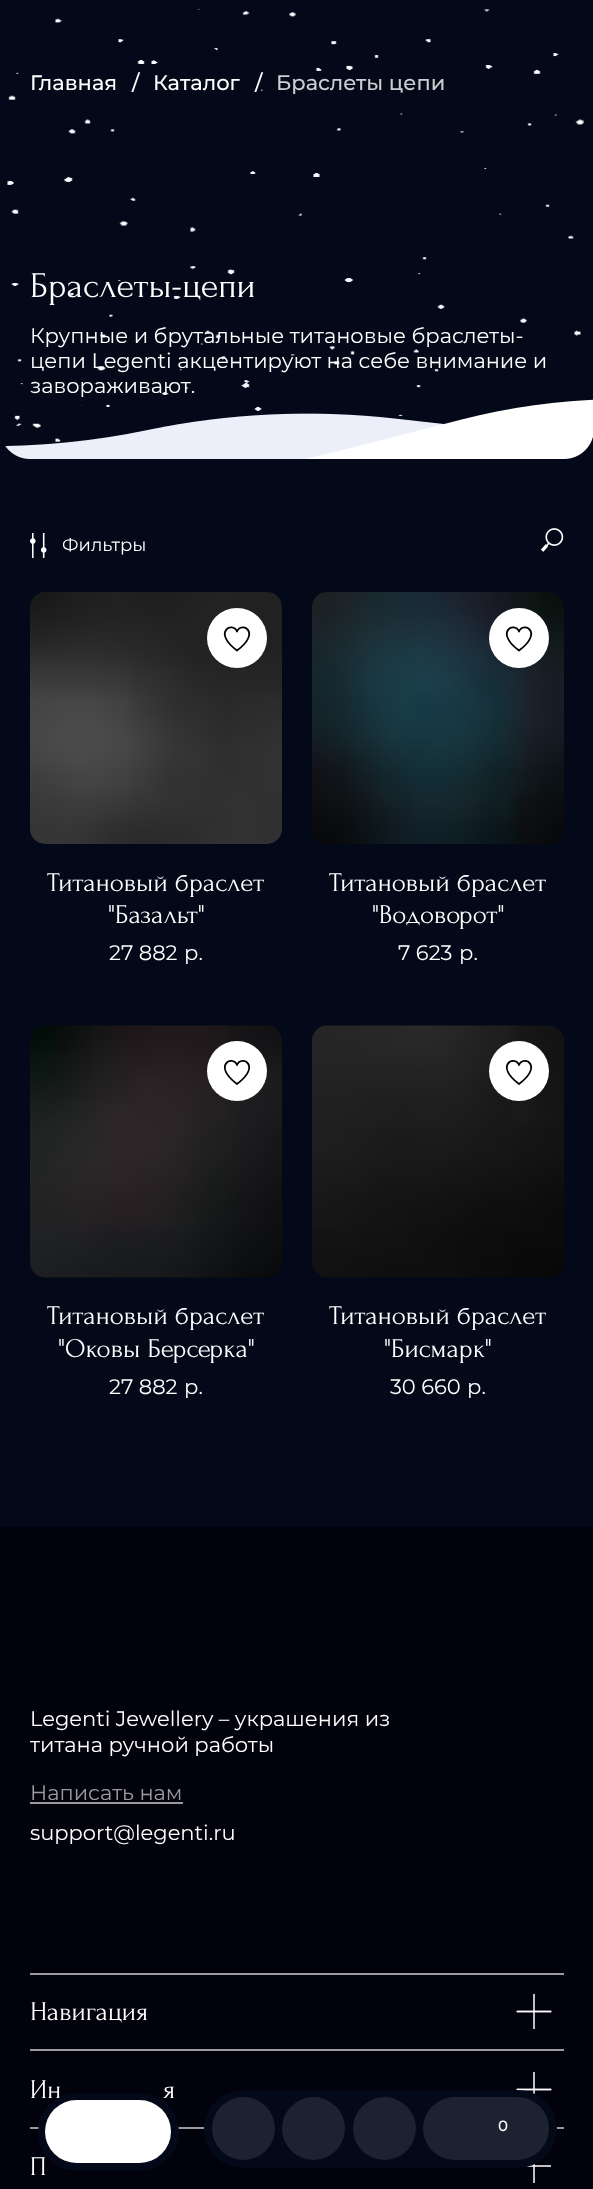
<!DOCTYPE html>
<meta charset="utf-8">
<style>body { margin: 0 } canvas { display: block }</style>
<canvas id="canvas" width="593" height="2189"></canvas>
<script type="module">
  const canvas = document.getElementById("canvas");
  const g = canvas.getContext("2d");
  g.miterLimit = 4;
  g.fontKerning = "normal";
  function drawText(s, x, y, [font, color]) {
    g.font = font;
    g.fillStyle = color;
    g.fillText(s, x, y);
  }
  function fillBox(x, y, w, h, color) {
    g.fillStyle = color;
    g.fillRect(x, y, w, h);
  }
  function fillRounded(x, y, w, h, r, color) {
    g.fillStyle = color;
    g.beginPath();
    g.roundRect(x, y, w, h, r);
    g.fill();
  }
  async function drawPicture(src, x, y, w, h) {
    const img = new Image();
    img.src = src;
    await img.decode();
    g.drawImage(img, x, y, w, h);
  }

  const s1 = ["36px Forum", "#FFFFFF"];
  const s2 = ["21px Montserrat", "#FFFFFF"];
  const s3 = ["500 21px Montserrat", "#FFFFFF"];
  const s4 = ["500 21px Montserrat", "#CDCED1"];
  const s5 = ["18px Montserrat", "#FFFFFF"];
  const s6 = ["27px Forum", "#FFFFFF"];
  const s7 = ["21px Montserrat", "#9A9A9E"];
  const s8 = ["500 15px Montserrat", "#FFFFFF"];

  fillBox(0, 0, 593, 2189, "#040919");
  drawText("Браслеты-цепи", 30, 297, s1);
  drawText("Крупные и брутальные титановые браслеты-", 30, 343, s2);
  drawText("цепи Legenti акцентируют на себе внимание и", 30, 368, s2);
  drawText("завораживают.", 30, 393, s2);
  await drawPicture("pic1.png", 7, 9, 586, 445);
  drawText("Главная", 30, 90, s3);
  drawText("/", 132, 90, s3);
  drawText("Каталог", 153, 90, s3);
  drawText("/", 255, 90, s3);
  drawText("Браслеты цепи", 276, 90, s4);
  await drawPicture("pic2.png", 5, 399, 588, 60);
  await drawPicture("pic3.png", 30, 533, 17, 25);
  drawText("Фильтры", 62, 551, s5);
  await drawPicture("pic4.png", 540, 528, 24, 24);
  await drawPicture("pic5.png", 30, 592, 252, 252);
  g.beginPath();
  g.arc(237, 638, 30, 0, Math.PI * 2);
  g.fill();
  g.beginPath();
  g.moveTo(237, 631.5);
  g.bezierCurveTo(232.5, 621, 212, 632, 237, 650.5);
  g.moveTo(237, 631.5);
  g.bezierCurveTo(241.5, 621, 262, 632, 237, 650.5);
  g.strokeStyle = "#000000";
  g.lineWidth = 1.8;
  g.lineCap = "round";
  g.stroke();
  drawText("Титановый браслет", 47, 891, s6);
  drawText("\"Базальт\"", 108, 923, s6);
  drawText("27 882", 109, 960, s2);
  drawText("р.", 184, 960, s2);
  await drawPicture("pic6.png", 312, 592, 252, 252);
  g.beginPath();
  g.arc(519, 638, 30, 0, Math.PI * 2);
  g.fill();
  g.beginPath();
  g.moveTo(519, 631.5);
  g.bezierCurveTo(514.5, 621, 494, 632, 519, 650.5);
  g.moveTo(519, 631.5);
  g.bezierCurveTo(523.5, 621, 544, 632, 519, 650.5);
  g.stroke();
  drawText("Титановый браслет", 329, 891, s6);
  drawText("\"Водоворот\"", 372, 923, s6);
  drawText("7 623", 398, 960, s2);
  drawText("р.", 459, 960, s2);
  await drawPicture("pic7.png", 30, 1025, 252, 253);
  g.beginPath();
  g.arc(237, 1071, 30, 0, Math.PI * 2);
  g.fill();
  g.beginPath();
  g.moveTo(237, 1065);
  g.bezierCurveTo(232.5, 1054.5, 212, 1065.5, 237, 1084);
  g.moveTo(237, 1065);
  g.bezierCurveTo(241.5, 1054.5, 262, 1065.5, 237, 1084);
  g.stroke();
  drawText("Титановый браслет", 47, 1324, s6);
  drawText("\"Оковы Берсерка\"", 58, 1357, s6);
  drawText("27 882", 109, 1394, s2);
  drawText("р.", 184, 1394, s2);
  await drawPicture("pic8.png", 312, 1025, 252, 253);
  g.beginPath();
  g.arc(519, 1071, 30, 0, Math.PI * 2);
  g.fill();
  g.beginPath();
  g.moveTo(519, 1065);
  g.bezierCurveTo(514.5, 1054.5, 494, 1065.5, 519, 1084);
  g.moveTo(519, 1065);
  g.bezierCurveTo(523.5, 1054.5, 544, 1065.5, 519, 1084);
  g.stroke();
  drawText("Титановый браслет", 329, 1324, s6);
  drawText("\"Бисмарк\"", 384, 1357, s6);
  drawText("30 660", 390, 1394, s2);
  drawText("р.", 467, 1394, s2);
  fillBox(0, 1527, 593, 662, "#02020C");
  drawText("Legenti Jewellery – украшения из", 30, 1726, s2);
  drawText("титана ручной работы", 30, 1752, s2);
  drawText("Написать нам", 30, 1800, s7);
  fillBox(30, 1802, 153, 2, "#9A9A9E");
  drawText("support@legenti.ru", 30, 1840, s2);
  fillBox(533, 2164, 2, 19, "#C0C0C2");
  fillBox(30, 1973, 534, 2, "#9A9A9E");
  drawText("Навигация", 30, 2020, s6);
  g.beginPath();
  g.moveTo(517.5, 2011.5);
  g.lineTo(550.5, 2011.5);
  g.strokeStyle = "#FFFFFF";
  g.lineWidth = 1.5;
  g.lineCap = "square";
  g.stroke();
  fillBox(533, 1994, 2, 35, "rgba(255, 255, 255, 0.75)");
  g.beginPath();
  g.moveTo(517.5, 2011.5);
  g.lineTo(550.5, 2011.5);
  g.stroke();
  fillBox(30, 2049, 534, 2, "#9A9A9E");
  drawText("Ин", 30, 2098, s6);
  drawText("я", 163, 2098, s6);
  g.beginPath();
  g.moveTo(517.5, 2089.5);
  g.lineTo(550.5, 2089.5);
  g.stroke();
  fillBox(533, 2072, 2, 22, "rgba(255, 255, 255, 0.75)");
  g.beginPath();
  g.moveTo(517.5, 2089.5);
  g.lineTo(550.5, 2089.5);
  g.stroke();
  fillBox(30, 2127, 534, 2, "#9A9A9E");
  drawText("П", 30, 2175, s6);
  fillBox(526, 2165, 25, 2, "#C0C0C2");
  fillBox(533, 2165, 2, 2, "#EFEFF0");
  fillRounded(38, 2093, 141, 78, 39, "#040919");
  fillRounded(204, 2090, 353, 78, 39, "#040919");
  fillRounded(45, 2100, 126, 63, 31.5, "#FFFFFF");
  g.fillStyle = "#1D2230";
  g.beginPath();
  g.arc(243.5, 2128.5, 31.5, 0, Math.PI * 2);
  g.fill();
  g.beginPath();
  g.arc(313.5, 2128.5, 31.5, 0, Math.PI * 2);
  g.fill();
  g.beginPath();
  g.arc(384.5, 2128.5, 31.5, 0, Math.PI * 2);
  g.fill();
  fillRounded(423, 2097, 126, 63, 31.5, "#1D2230");
  drawText("0", 498, 2131, s8);
</script>
